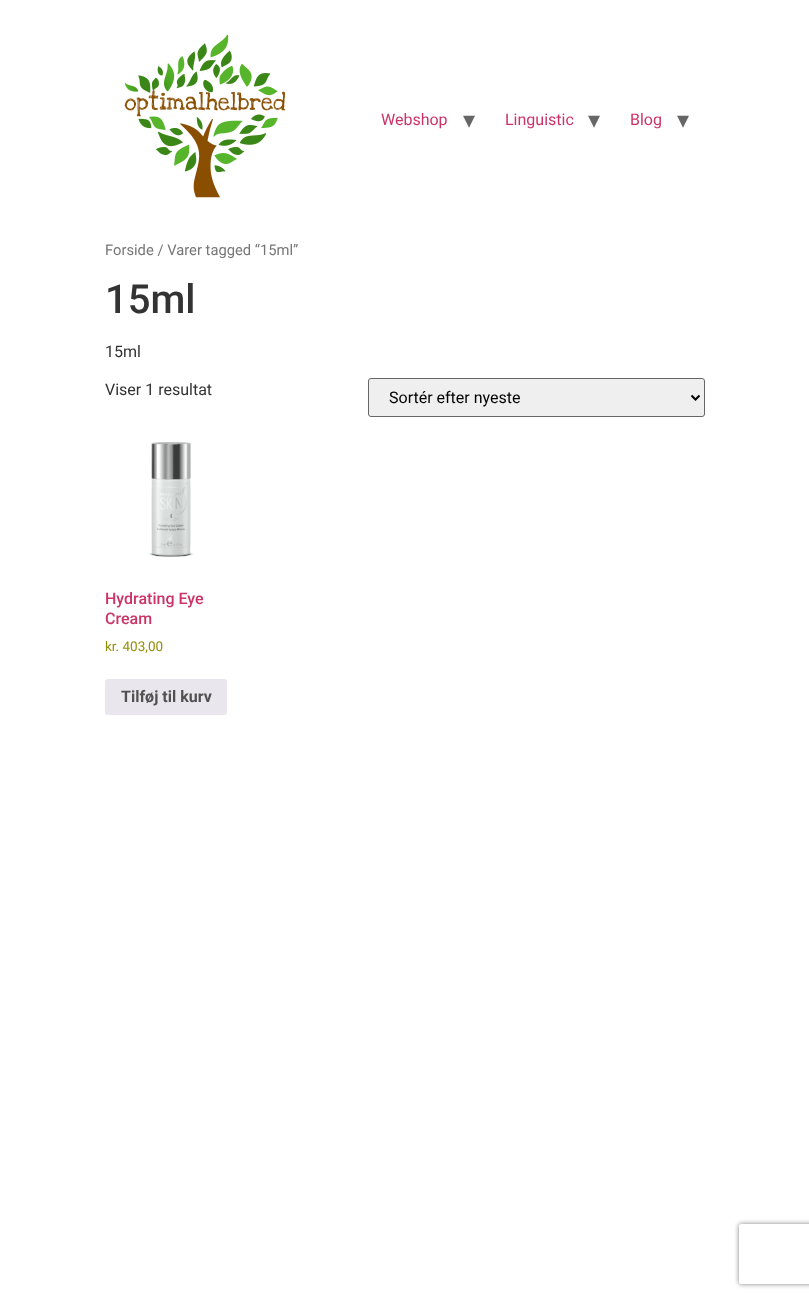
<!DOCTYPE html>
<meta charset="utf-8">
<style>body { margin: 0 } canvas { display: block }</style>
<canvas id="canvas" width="809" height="1298"></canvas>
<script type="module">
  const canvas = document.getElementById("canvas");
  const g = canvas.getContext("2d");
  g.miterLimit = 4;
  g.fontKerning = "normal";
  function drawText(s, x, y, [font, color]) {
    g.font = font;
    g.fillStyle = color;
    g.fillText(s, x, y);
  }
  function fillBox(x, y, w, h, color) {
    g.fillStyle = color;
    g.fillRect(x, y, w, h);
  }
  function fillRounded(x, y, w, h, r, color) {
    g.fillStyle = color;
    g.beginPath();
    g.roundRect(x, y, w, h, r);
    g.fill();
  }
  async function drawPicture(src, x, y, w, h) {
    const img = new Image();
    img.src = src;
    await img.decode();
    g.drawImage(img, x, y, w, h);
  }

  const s1 = ["16px Roboto", "#CC3366"];
  const s2 = ["24px DejaVu Sans", "#666666"];
  const s3 = ["14.75px Roboto", "#767676"];
  const s4 = ["500 40px Roboto", "#333333"];
  const s5 = ["16px Roboto", "#333333"];
  const s6 = ["16px Roboto", "#000000"];
  const s7 = ["500 16px Roboto", "#CC3366"];
  const s8 = ["13.5px Roboto", "#958E09"];
  const s9 = ["bold 16px Roboto", "#515151"];

  fillBox(0, 0, 809, 1298, "#FFFFFF");
  await drawPicture("pic1.png", 124, 34, 162, 164);
  drawText("Webshop", 381, 125, s1);
  drawText("▾", 463, 128, s2);
  drawText("Linguistic", 505, 125, s1);
  drawText("▾", 588, 128, s2);
  drawText("Blog", 630, 125, s1);
  drawText("▾", 677, 128, s2);
  drawText("Forside / Varer tagged “15ml”", 105, 255, s3);
  drawText("15ml", 105, 313, s4);
  drawText("15ml", 105, 357, s5);
  drawText("Viser 1 resultat", 105, 395, s5);
  g.fillStyle = "#EFEFEF";
  g.beginPath();
  g.roundRect(368.5, 378.5, 336, 38, 2.5);
  g.fill();
  g.strokeStyle = "#666666";
  g.stroke();
  g.beginPath();
  g.moveTo(691.5, 395.5);
  g.lineTo(695.5, 399.5);
  g.lineTo(699.5, 395.5);
  g.strokeStyle = "#000000";
  g.lineWidth = 2;
  g.stroke();
  drawText("Sortér efter nyeste", 389, 403, s6);
  await drawPicture("pic2.png", 148, 441, 46, 116);
  drawText("Hydrating Eye", 105, 604, s7);
  drawText("Cream", 105, 624, s7);
  drawText("kr. 403,00", 105, 651, s8);
  fillRounded(105, 679, 122, 36, 3, "#E9E6ED");
  drawText("Tilføj til kurv", 121, 702, s9);
  g.save();
  g.beginPath();
  g.moveTo(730, 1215);
  g.lineTo(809, 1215);
  g.lineTo(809, 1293);
  g.lineTo(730, 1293);
  g.closePath();
  g.moveTo(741, 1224);
  g.lineTo(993, 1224);
  g.bezierCurveTo(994, 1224, 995, 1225, 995, 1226);
  g.lineTo(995, 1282);
  g.bezierCurveTo(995, 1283, 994, 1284, 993, 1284);
  g.lineTo(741, 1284);
  g.bezierCurveTo(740, 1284, 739, 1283, 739, 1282);
  g.lineTo(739, 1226);
  g.bezierCurveTo(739, 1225, 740, 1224, 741, 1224);
  g.closePath();
  g.clip("evenodd");
  g.fillStyle = "#808080";
  g.filter = "blur(2.5px)";
  g.beginPath();
  g.roundRect(739, 1224, 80, 60, 2);
  g.fill();
  g.filter = "none";
  g.restore();
</script>
